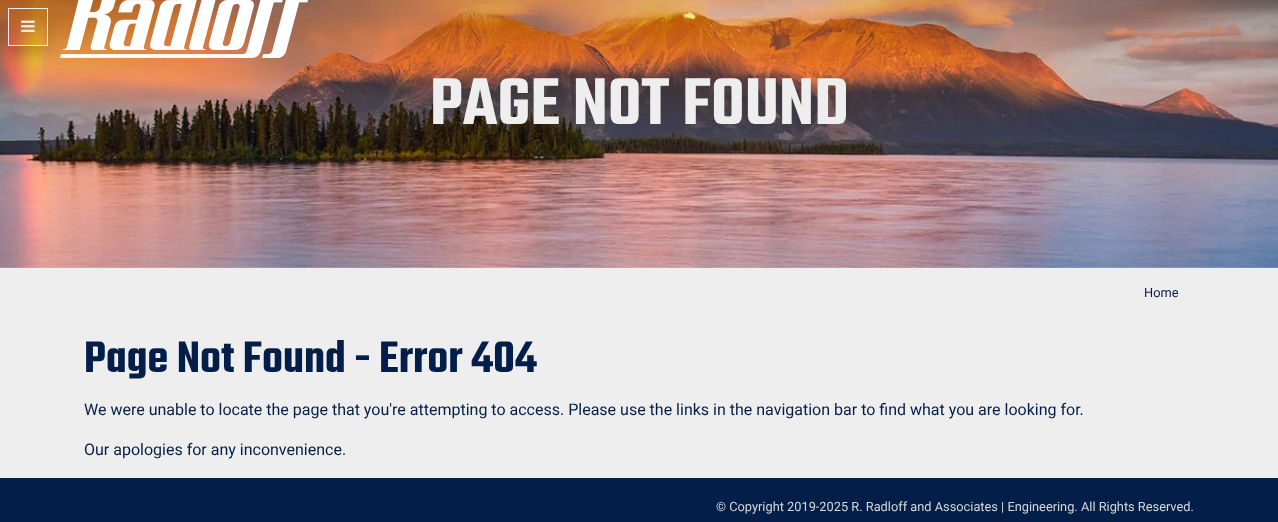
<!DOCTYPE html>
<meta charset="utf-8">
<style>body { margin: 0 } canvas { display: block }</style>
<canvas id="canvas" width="1278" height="522"></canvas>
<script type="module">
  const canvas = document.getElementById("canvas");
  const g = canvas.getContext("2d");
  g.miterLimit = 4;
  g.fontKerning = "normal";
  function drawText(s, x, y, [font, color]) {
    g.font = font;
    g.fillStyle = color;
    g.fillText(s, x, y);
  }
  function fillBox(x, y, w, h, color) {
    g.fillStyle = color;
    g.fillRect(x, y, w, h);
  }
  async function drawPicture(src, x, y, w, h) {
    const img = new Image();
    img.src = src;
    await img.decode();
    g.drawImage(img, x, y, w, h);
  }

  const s1 = ["600 72px Teko", "#EEEEEE"];
  const s2 = ["12.8px Roboto", "#031F49"];
  const s3 = ["600 48px Teko", "#031F49"];
  const s4 = ["16px Roboto", "#031F49"];
  const s5 = ["12.8px Roboto", "#D7D7D7"];

  fillBox(0, 0, 1278, 522, "#EEEEEE");
  await drawPicture("pic3.png", 0, 0, 1278, 268);
  await drawPicture("pic2.png", 60, 0, 248, 58);
  g.save();
  g.beginPath();
  g.moveTo(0, 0);
  g.lineTo(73, 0);
  g.lineTo(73, 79);
  g.lineTo(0, 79);
  g.closePath();
  g.moveTo(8, 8);
  g.lineTo(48, 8);
  g.lineTo(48, 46);
  g.lineTo(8, 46);
  g.closePath();
  g.clip("evenodd");
  g.fillStyle = "rgba(0, 0, 0, 0.15)";
  g.filter = "blur(8px)";
  g.beginPath();
  g.rect(8, 16, 40, 38);
  g.fill();
  g.filter = "none";
  g.restore();
  g.strokeStyle = "#EEEEEE";
  g.strokeRect(8.5, 8.5, 39, 37);
  await drawPicture("pic1.png", 21, 20, 14, 12);
  drawText("PAGE NOT FOUND", 430, 124, s1);
  drawText("Home", 1144, 297, s2);
  drawText("Page Not Found - Error 404", 84, 372, s3);
  drawText("We were unable to locate the page that you're attempting to access. Please use the links in the navigation bar to find what you are looking for.", 84, 415, s4);
  drawText("Our apologies for any inconvenience.", 84, 455, s4);
  fillBox(0, 478, 1278, 44, "#031F49");
  drawText("© Copyright 2019-2025 R. Radloff and Associates | Engineering. All Rights Reserved.", 716, 511, s5);
</script>
